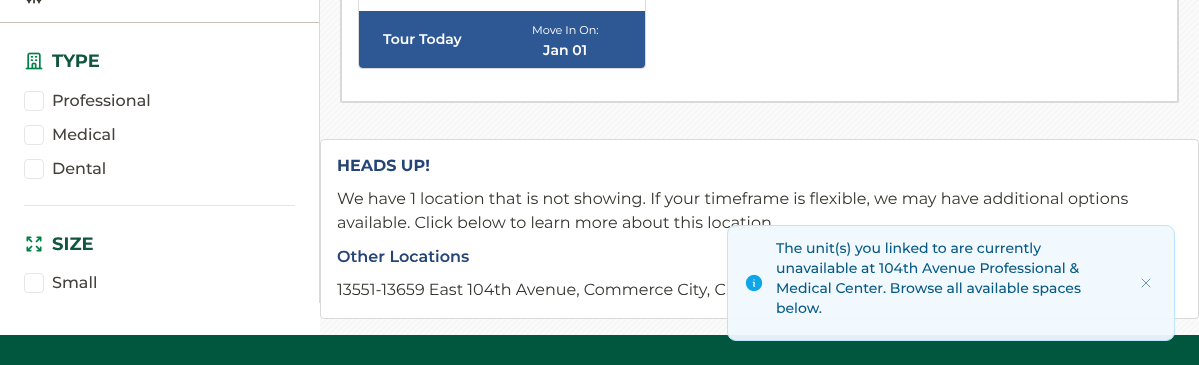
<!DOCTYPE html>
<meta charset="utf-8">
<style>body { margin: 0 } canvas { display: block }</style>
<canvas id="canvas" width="1199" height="365"></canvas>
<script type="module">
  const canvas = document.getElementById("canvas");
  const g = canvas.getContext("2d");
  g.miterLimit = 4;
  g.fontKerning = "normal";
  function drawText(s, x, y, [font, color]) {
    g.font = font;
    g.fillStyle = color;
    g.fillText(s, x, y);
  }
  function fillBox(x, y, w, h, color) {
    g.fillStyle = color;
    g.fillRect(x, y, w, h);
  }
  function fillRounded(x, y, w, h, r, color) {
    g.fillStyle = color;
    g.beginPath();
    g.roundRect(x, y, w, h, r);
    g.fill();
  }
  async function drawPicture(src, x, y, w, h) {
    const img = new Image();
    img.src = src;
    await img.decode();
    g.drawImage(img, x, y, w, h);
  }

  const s1 = ["bold 18px Montserrat", "#115740"];
  const s2 = ["500 16px Montserrat", "#44403C"];
  const s3 = ["600 14px Montserrat", "#FFFFFF"];
  const s4 = ["11.25px Montserrat", "#FFFFFF"];
  const s5 = ["bold 16px Montserrat", "#244575"];
  const s6 = ["16px Montserrat", "#37352F"];
  const s7 = ["600 16px Montserrat", "#244575"];
  const s8 = ["500 14px Montserrat", "#075985"];

  fillBox(0, 0, 1199, 365, "#FFFFFF");
  fillBox(319, 0, 1, 303, "#D9D9D9");
  fillBox(0, 22, 319, 1, "#C7BFB8");
  await drawPicture("pic1.png", 26, 0, 16, 4);
  await drawPicture("pic2.png", 25, 52, 18, 18);
  drawText("TYPE", 52, 67, s1);
  g.beginPath();
  g.roundRect(24.5, 91.5, 19, 19, 3.5);
  g.strokeStyle = "#E6E6E6";
  g.stroke();
  drawText("Professional", 52, 106, s2);
  g.beginPath();
  g.roundRect(24.5, 125.5, 19, 19, 3.5);
  g.stroke();
  drawText("Medical", 52, 140, s2);
  g.beginPath();
  g.roundRect(24.5, 159.5, 19, 19, 3.5);
  g.stroke();
  drawText("Dental", 52, 174, s2);
  fillBox(24, 205, 271, 1, "#E7E5E4");
  await drawPicture("pic3.png", 26, 236, 16, 16);
  drawText("SIZE", 52, 250, s1);
  g.beginPath();
  g.roundRect(24.5, 273.5, 19, 19, 3.5);
  g.stroke();
  drawText("Small", 52, 288, s2);
  fillBox(320, 0, 879, 335, "#FAFAFA");
  await drawPicture("pic4.png", 320, 0, 879, 335);
  g.fillStyle = "#FFFFFF";
  g.beginPath();
  g.roundRect(341, -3, 837, 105, 1);
  g.fill();
  g.strokeStyle = "#D9D9D9";
  g.lineWidth = 2;
  g.stroke();
  g.beginPath();
  g.roundRect(358.5, -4.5, 287, 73, 3.5);
  g.lineWidth = 1;
  g.stroke();
  g.fillStyle = "#2E5894";
  g.beginPath();
  g.roundRect(359, 11, 286, 57, [0, 0, 4, 4]);
  g.fill();
  drawText("Tour Today", 383, 44, s3);
  drawText("Move In On:", 532, 34, s4);
  drawText("Jan 01", 543, 55, s3);
  fillRounded(320, 139, 879, 180, 4, "#FFFFFF");
  g.beginPath();
  g.roundRect(320.5, 139.5, 878, 179, 3.5);
  g.strokeStyle = "rgba(0, 0, 0, 0.15)";
  g.stroke();
  drawText("HEADS UP!", 337, 171, s5);
  drawText("We have 1 location that is not showing. If your timeframe is flexible, we may have additional options", 337, 204, s6);
  drawText("available. Click below to learn more about this location", 337, 228, s6);
  drawText("Other Locations", 337, 262, s7);
  drawText("13551-13659 East 104th Avenue, Commerce City, C", 337, 295, s6);
  fillBox(0, 335, 1199, 30, "#00573D");
  g.fillStyle = "rgba(240, 249, 255, 0.95)";
  g.beginPath();
  g.roundRect(727.5, 225.5, 447, 115, 8.5);
  g.fill();
  g.strokeStyle = "#BAE6FD";
  g.stroke();
  await drawPicture("pic5.png", 745, 274, 18, 18);
  drawText("The unit(s) you linked to are currently", 776, 253, s8);
  drawText("unavailable at 104th Avenue Professional &", 776, 273, s8);
  drawText("Medical Center. Browse all available spaces", 776, 293, s8);
  drawText("below.", 776, 313, s8);
  g.beginPath();
  g.moveTo(1142, 287);
  g.lineTo(1150, 279);
  g.moveTo(1142, 279);
  g.lineTo(1150, 287);
  g.strokeStyle = "#6599B6";
  g.lineCap = "round";
  g.lineJoin = "round";
  g.stroke();
</script>
